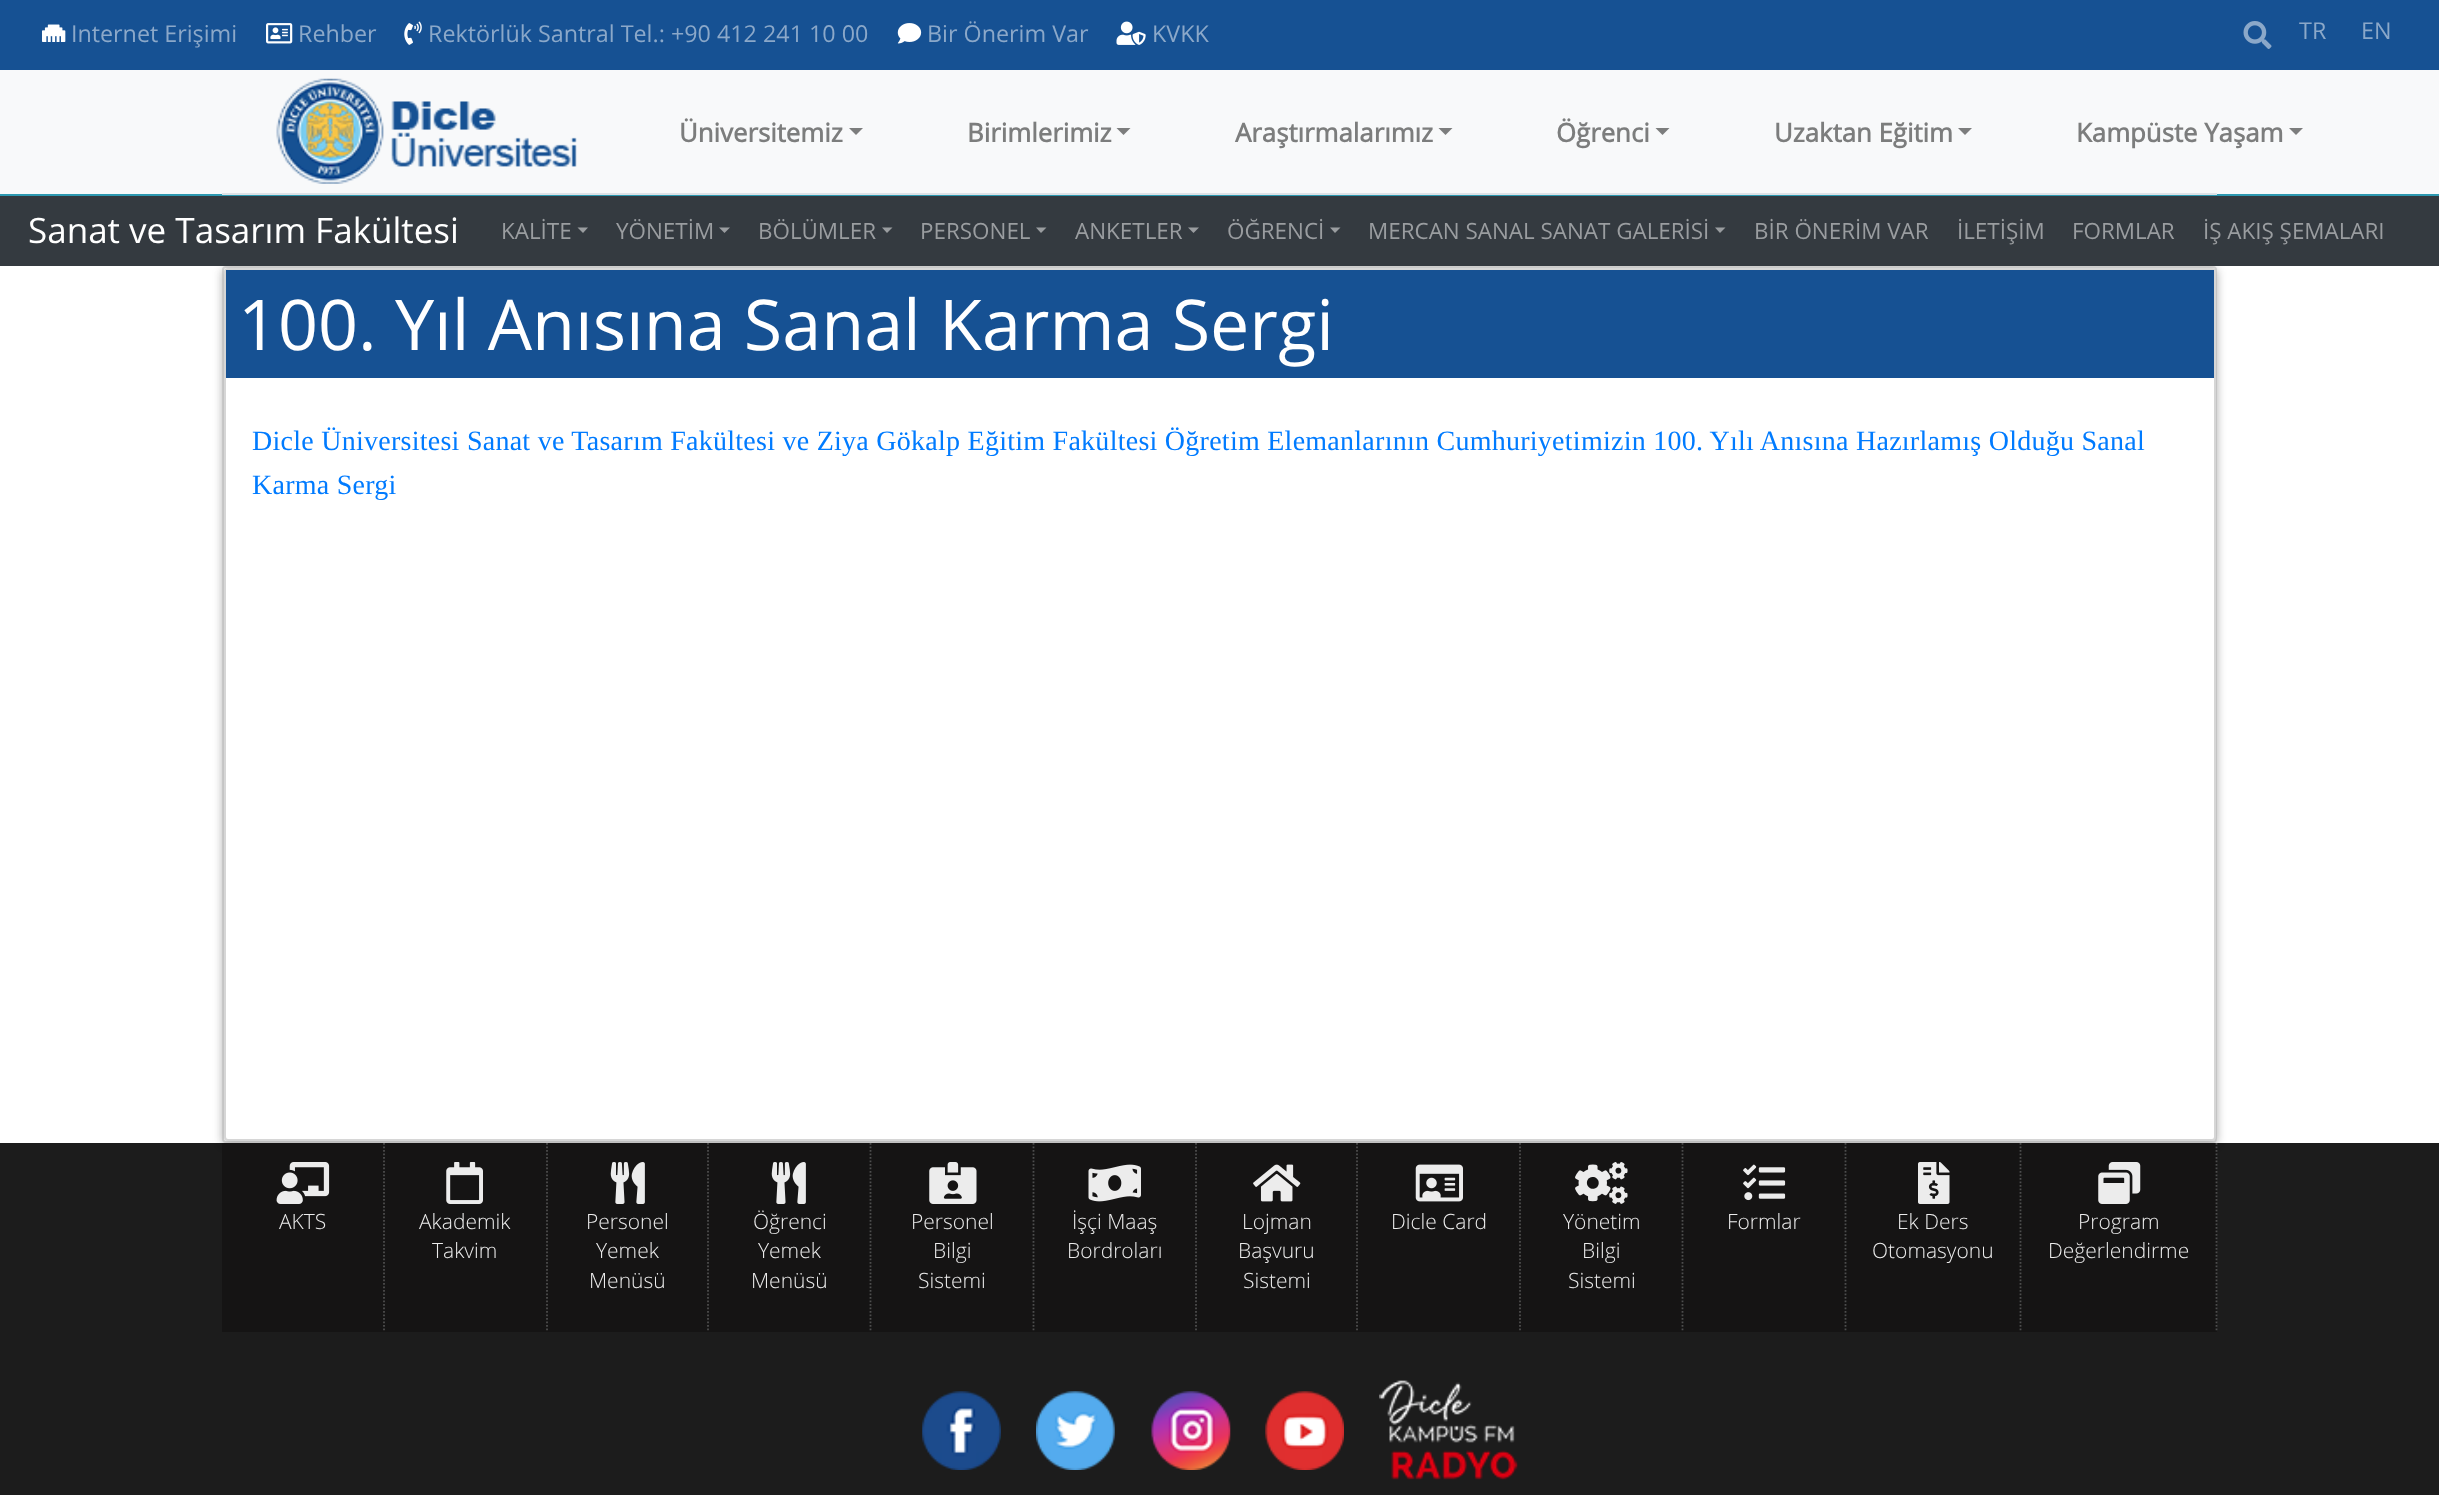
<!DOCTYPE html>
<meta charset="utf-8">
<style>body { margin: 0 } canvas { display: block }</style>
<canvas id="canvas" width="2439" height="1495"></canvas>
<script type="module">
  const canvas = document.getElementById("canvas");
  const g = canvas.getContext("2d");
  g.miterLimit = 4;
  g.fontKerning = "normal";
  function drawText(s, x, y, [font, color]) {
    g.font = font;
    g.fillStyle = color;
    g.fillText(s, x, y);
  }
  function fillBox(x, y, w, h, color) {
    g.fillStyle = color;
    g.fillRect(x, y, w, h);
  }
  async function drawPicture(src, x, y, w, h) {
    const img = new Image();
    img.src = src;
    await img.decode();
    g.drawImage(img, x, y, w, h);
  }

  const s1 = ["23.3px Open Sans", "#8BA8C9"];
  const s2 = ["bold 25.75px Open Sans", "#7C7D7D"];
  const s3 = ["35px Open Sans", "#FFFFFF"];
  const s4 = ["22.4px Open Sans", "#9A9DA0"];
  const s5 = ["70px Open Sans", "#FFFFFF"];
  const s6 = ["28px Liberation Serif", "#007BFF"];
  const s7 = ["300 21px Open Sans", "#ECECEC"];

  fillBox(0, 0, 2439, 1495, "#1C1C1C");
  fillBox(0, 70, 2439, 124, "#F8F9FA");
  fillBox(0, 194, 2439, 2, "#2D99B1");
  fillBox(0, 0, 2439, 70, "#165193");
  await drawPicture("pic1.png", 42, 24, 24, 18);
  drawText("Internet Erişimi", 71, 42, s1);
  await drawPicture("pic2.png", 266, 23, 27, 21);
  drawText("Rehber", 298, 42, s1);
  await drawPicture("pic3.png", 404, 21, 18, 24);
  drawText("Rektörlük Santral Tel.: +90 412 241 10 00", 428, 42, s1);
  await drawPicture("pic4.png", 897, 23, 25, 21);
  drawText("Bir Önerim Var", 927, 42, s1);
  await drawPicture("pic5.png", 1116, 21, 30, 24);
  drawText("KVKK", 1152, 42, s1);
  await drawPicture("pic6.png", 2243, 21, 29, 28);
  drawText("TR", 2299, 39, s1);
  drawText("EN", 2361, 39, s1);
  fillBox(222, 193, 1995, 2, "#DEE2E6");
  await drawPicture("pic7.png", 276, 78, 301, 106);
  drawText("Üniversitemiz", 679, 142, s2);
  g.beginPath();
  g.moveTo(849, 128);
  g.lineTo(863, 128);
  g.lineTo(856, 135);
  g.closePath();
  g.fill();
  drawText("Birimlerimiz", 967, 142, s2);
  g.beginPath();
  g.moveTo(1116.5, 128);
  g.lineTo(1130.5, 128);
  g.lineTo(1123.5, 135);
  g.closePath();
  g.fill();
  drawText("Araştırmalarımız", 1235, 142, s2);
  g.beginPath();
  g.moveTo(1438.5, 128);
  g.lineTo(1452.5, 128);
  g.lineTo(1445.5, 135);
  g.closePath();
  g.fill();
  drawText("Öğrenci", 1556, 142, s2);
  g.beginPath();
  g.moveTo(1655.5, 128);
  g.lineTo(1669.5, 128);
  g.lineTo(1662.5, 135);
  g.closePath();
  g.fill();
  drawText("Uzaktan Eğitim", 1774, 142, s2);
  g.beginPath();
  g.moveTo(1958, 128);
  g.lineTo(1972, 128);
  g.lineTo(1965, 135);
  g.closePath();
  g.fill();
  drawText("Kampüste Yaşam", 2076, 142, s2);
  g.beginPath();
  g.moveTo(2289, 128);
  g.lineTo(2303, 128);
  g.lineTo(2296, 135);
  g.closePath();
  g.fill();
  fillBox(0, 266, 2439, 877, "#FFFFFF");
  g.fillStyle = "rgba(0, 0, 0, 0.18)";
  g.filter = "blur(5px)";
  g.beginPath();
  g.roundRect(222, 268, 1995, 877, 4);
  g.fill();
  g.filter = "none";
  g.fillStyle = "#FFFFFF";
  g.beginPath();
  g.roundRect(223, 267, 1993, 875, 3);
  g.fill();
  g.strokeStyle = "#D6D6D6";
  g.lineWidth = 2;
  g.stroke();
  g.fillStyle = "rgba(0, 0, 0, 0.18)";
  g.filter = "blur(5px)";
  g.beginPath();
  g.roundRect(224, 270, 1992, 873, 4);
  g.fill();
  g.filter = "none";
  fillBox(0, 196, 2439, 70, "#343A40");
  drawText("Sanat ve Tasarım Fakültesi", 28, 243, s3);
  drawText("KALİTE", 501, 239, s4);
  g.beginPath();
  g.moveTo(577.5, 227.5);
  g.lineTo(588, 227.5);
  g.lineTo(583, 233);
  g.closePath();
  g.fill();
  drawText("YÖNETİM", 616, 239, s4);
  g.beginPath();
  g.moveTo(719, 227.5);
  g.lineTo(730, 227.5);
  g.lineTo(724.5, 233);
  g.closePath();
  g.fill();
  drawText("BÖLÜMLER", 758, 239, s4);
  g.beginPath();
  g.moveTo(882, 227.5);
  g.lineTo(892.5, 227.5);
  g.lineTo(887, 233);
  g.closePath();
  g.fill();
  drawText("PERSONEL", 920, 239, s4);
  g.beginPath();
  g.moveTo(1036, 227.5);
  g.lineTo(1046.5, 227.5);
  g.lineTo(1041, 233);
  g.closePath();
  g.fill();
  drawText("ANKETLER", 1075, 239, s4);
  g.beginPath();
  g.moveTo(1188, 227.5);
  g.lineTo(1199, 227.5);
  g.lineTo(1193.5, 233);
  g.closePath();
  g.fill();
  drawText("ÖĞRENCİ", 1227, 239, s4);
  g.beginPath();
  g.moveTo(1330, 227.5);
  g.lineTo(1340.5, 227.5);
  g.lineTo(1335, 233);
  g.closePath();
  g.fill();
  drawText("MERCAN SANAL SANAT GALERİSİ", 1368, 239, s4);
  g.beginPath();
  g.moveTo(1715, 227.5);
  g.lineTo(1725.5, 227.5);
  g.lineTo(1720, 233);
  g.closePath();
  g.fill();
  drawText("BİR ÖNERİM VAR", 1754, 239, s4);
  drawText("İLETİŞİM", 1957, 239, s4);
  drawText("FORMLAR", 2072, 239, s4);
  drawText("İŞ AKIŞ ŞEMALARI", 2203, 239, s4);
  g.fillStyle = "#FFFFFF";
  g.beginPath();
  g.roundRect(225, 269, 1990, 871, 3);
  g.fill();
  g.stroke();
  fillBox(226, 270, 1988, 108, "#165193");
  drawText("100. Yıl Anısına Sanal Karma Sergi", 238, 350, s5);
  g.letterSpacing = "0.26px";
  drawText("Dicle Üniversitesi Sanat ve Tasarım Fakültesi ve Ziya Gökalp Eğitim Fakültesi Öğretim Elemanlarının Cumhuriyetimizin 100. Yılı Anısına Hazırlamış Olduğu Sanal", 252, 450, s6);
  drawText("Karma Sergi", 252, 494, s6);
  fillBox(222, 1143, 1995, 189, "#151414");
  g.beginPath();
  g.moveTo(384, 1143);
  g.lineTo(384, 1332);
  g.strokeStyle = "#4D4D4D";
  g.lineWidth = 1.8;
  g.setLineDash([1.75, 1.75]);
  g.stroke();
  await drawPicture("pic8.png", 276, 1162, 54, 42);
  g.letterSpacing = "0px";
  drawText("AKTS", 279, 1229, s7);
  g.beginPath();
  g.moveTo(547, 1143);
  g.lineTo(547, 1332);
  g.stroke();
  await drawPicture("pic9.png", 446, 1162, 37, 42);
  drawText("Akademik", 419, 1229, s7);
  drawText("Takvim", 432, 1258, s7);
  g.beginPath();
  g.moveTo(708, 1143);
  g.lineTo(708, 1332);
  g.stroke();
  await drawPicture("pic10.png", 610, 1162, 35, 42);
  drawText("Personel", 586, 1229, s7);
  drawText("Yemek", 596, 1258, s7);
  drawText("Menüsü", 589, 1288, s7);
  g.beginPath();
  g.moveTo(870.5, 1143);
  g.lineTo(870.5, 1332);
  g.stroke();
  await drawPicture("pic10.png", 771, 1162, 35, 42);
  drawText("Öğrenci", 753, 1229, s7);
  drawText("Yemek", 758, 1258, s7);
  drawText("Menüsü", 751, 1288, s7);
  g.beginPath();
  g.moveTo(1033.5, 1143);
  g.lineTo(1033.5, 1332);
  g.stroke();
  await drawPicture("pic11.png", 929, 1162, 48, 42);
  drawText("Personel", 911, 1229, s7);
  drawText("Bilgi", 933, 1258, s7);
  drawText("Sistemi", 918, 1288, s7);
  g.beginPath();
  g.moveTo(1196, 1143);
  g.lineTo(1196, 1332);
  g.stroke();
  await drawPicture("pic12.png", 1088, 1164, 53, 38);
  drawText("İşçi Maaş", 1072, 1229, s7);
  drawText("Bordroları", 1067, 1258, s7);
  g.beginPath();
  g.moveTo(1357, 1143);
  g.lineTo(1357, 1332);
  g.stroke();
  await drawPicture("pic13.png", 1253, 1164, 48, 38);
  drawText("Lojman", 1242, 1229, s7);
  drawText("Başvuru", 1238, 1258, s7);
  drawText("Sistemi", 1243, 1288, s7);
  g.beginPath();
  g.moveTo(1520, 1143);
  g.lineTo(1520, 1332);
  g.stroke();
  await drawPicture("pic14.png", 1415, 1164, 48, 38);
  drawText("Dicle Card", 1391, 1229, s7);
  g.beginPath();
  g.moveTo(1682.5, 1143);
  g.lineTo(1682.5, 1332);
  g.stroke();
  await drawPicture("pic15.png", 1575, 1162, 53, 42);
  drawText("Yönetim", 1563, 1229, s7);
  drawText("Bilgi", 1582, 1258, s7);
  drawText("Sistemi", 1568, 1288, s7);
  g.beginPath();
  g.moveTo(1845.5, 1143);
  g.lineTo(1845.5, 1332);
  g.stroke();
  await drawPicture("pic16.png", 1743, 1164, 43, 37);
  drawText("Formlar", 1727, 1229, s7);
  g.beginPath();
  g.moveTo(2020.5, 1143);
  g.lineTo(2020.5, 1332);
  g.stroke();
  await drawPicture("pic17.png", 1918, 1162, 32, 42);
  drawText("Ek Ders", 1897, 1229, s7);
  drawText("Otomasyonu", 1872, 1258, s7);
  g.beginPath();
  g.moveTo(2216.5, 1143);
  g.lineTo(2216.5, 1332);
  g.stroke();
  await drawPicture("pic18.png", 2098, 1162, 43, 42);
  drawText("Program", 2078, 1229, s7);
  drawText("Değerlendirme", 2048, 1258, s7);
  await drawPicture("pic19.png", 922, 1391, 79, 79);
  await drawPicture("pic20.png", 1036, 1391, 79, 79);
  await drawPicture("pic21.png", 1151, 1391, 80, 79);
  await drawPicture("pic22.png", 1265, 1391, 79, 79);
  await drawPicture("pic23.png", 1379, 1380, 139, 100);
</script>
